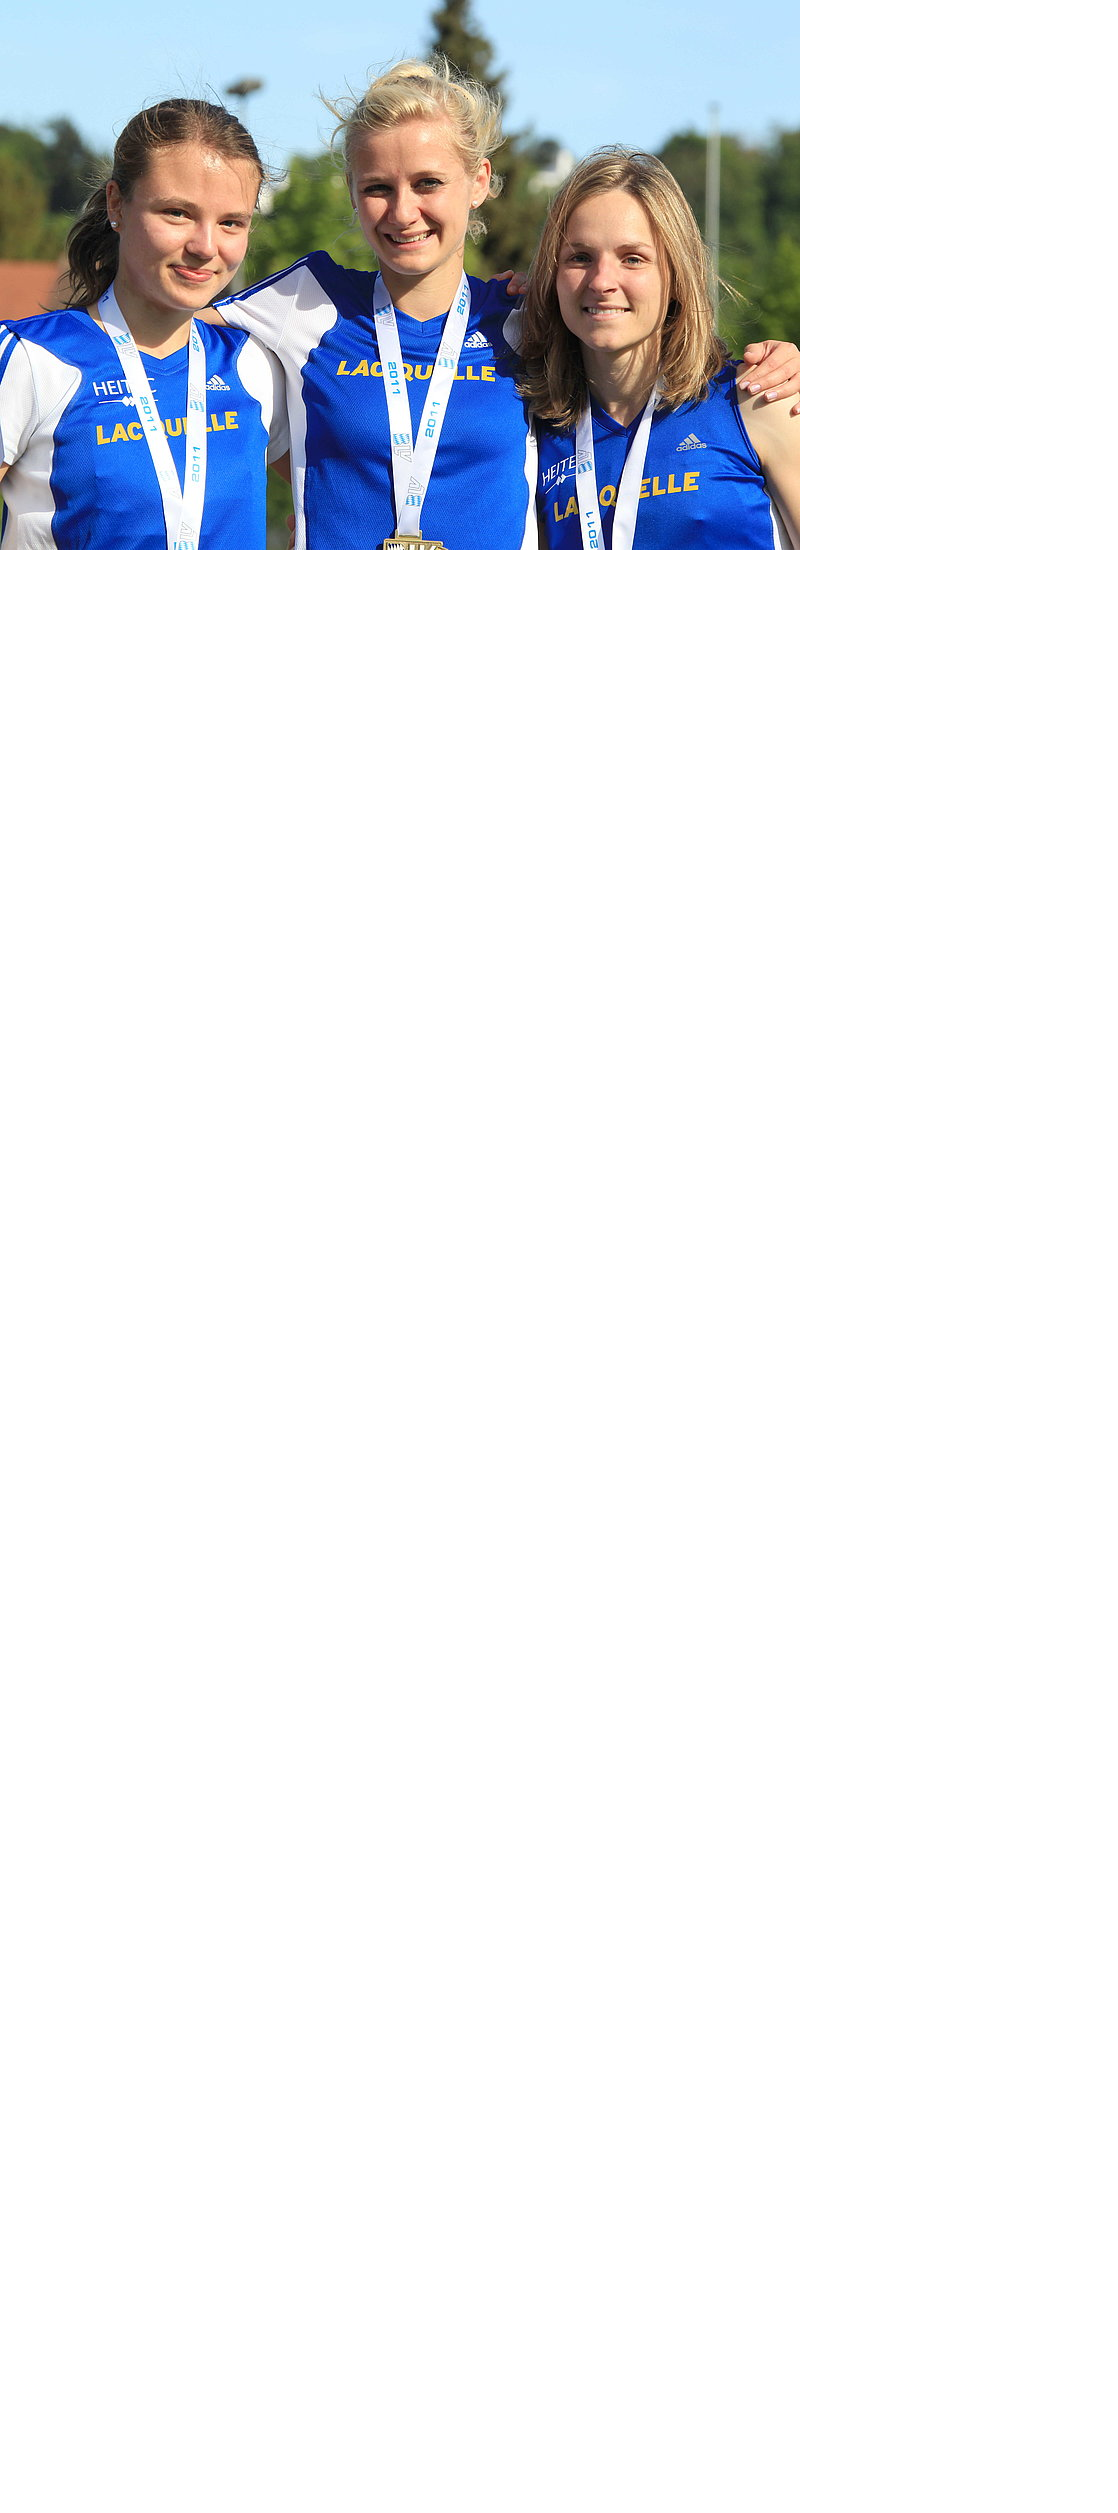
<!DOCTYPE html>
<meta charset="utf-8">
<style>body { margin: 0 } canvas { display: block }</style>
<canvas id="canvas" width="1118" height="2513"></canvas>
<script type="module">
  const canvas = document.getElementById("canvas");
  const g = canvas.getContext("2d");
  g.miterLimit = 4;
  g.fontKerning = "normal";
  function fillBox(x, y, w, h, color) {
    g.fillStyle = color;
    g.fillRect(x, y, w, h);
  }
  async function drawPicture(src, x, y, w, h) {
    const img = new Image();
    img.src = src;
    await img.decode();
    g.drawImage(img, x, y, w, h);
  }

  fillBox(0, 0, 1118, 2513, "#FFFFFF");
  await drawPicture("pic1.png", 0, 0, 800, 550);
</script>
